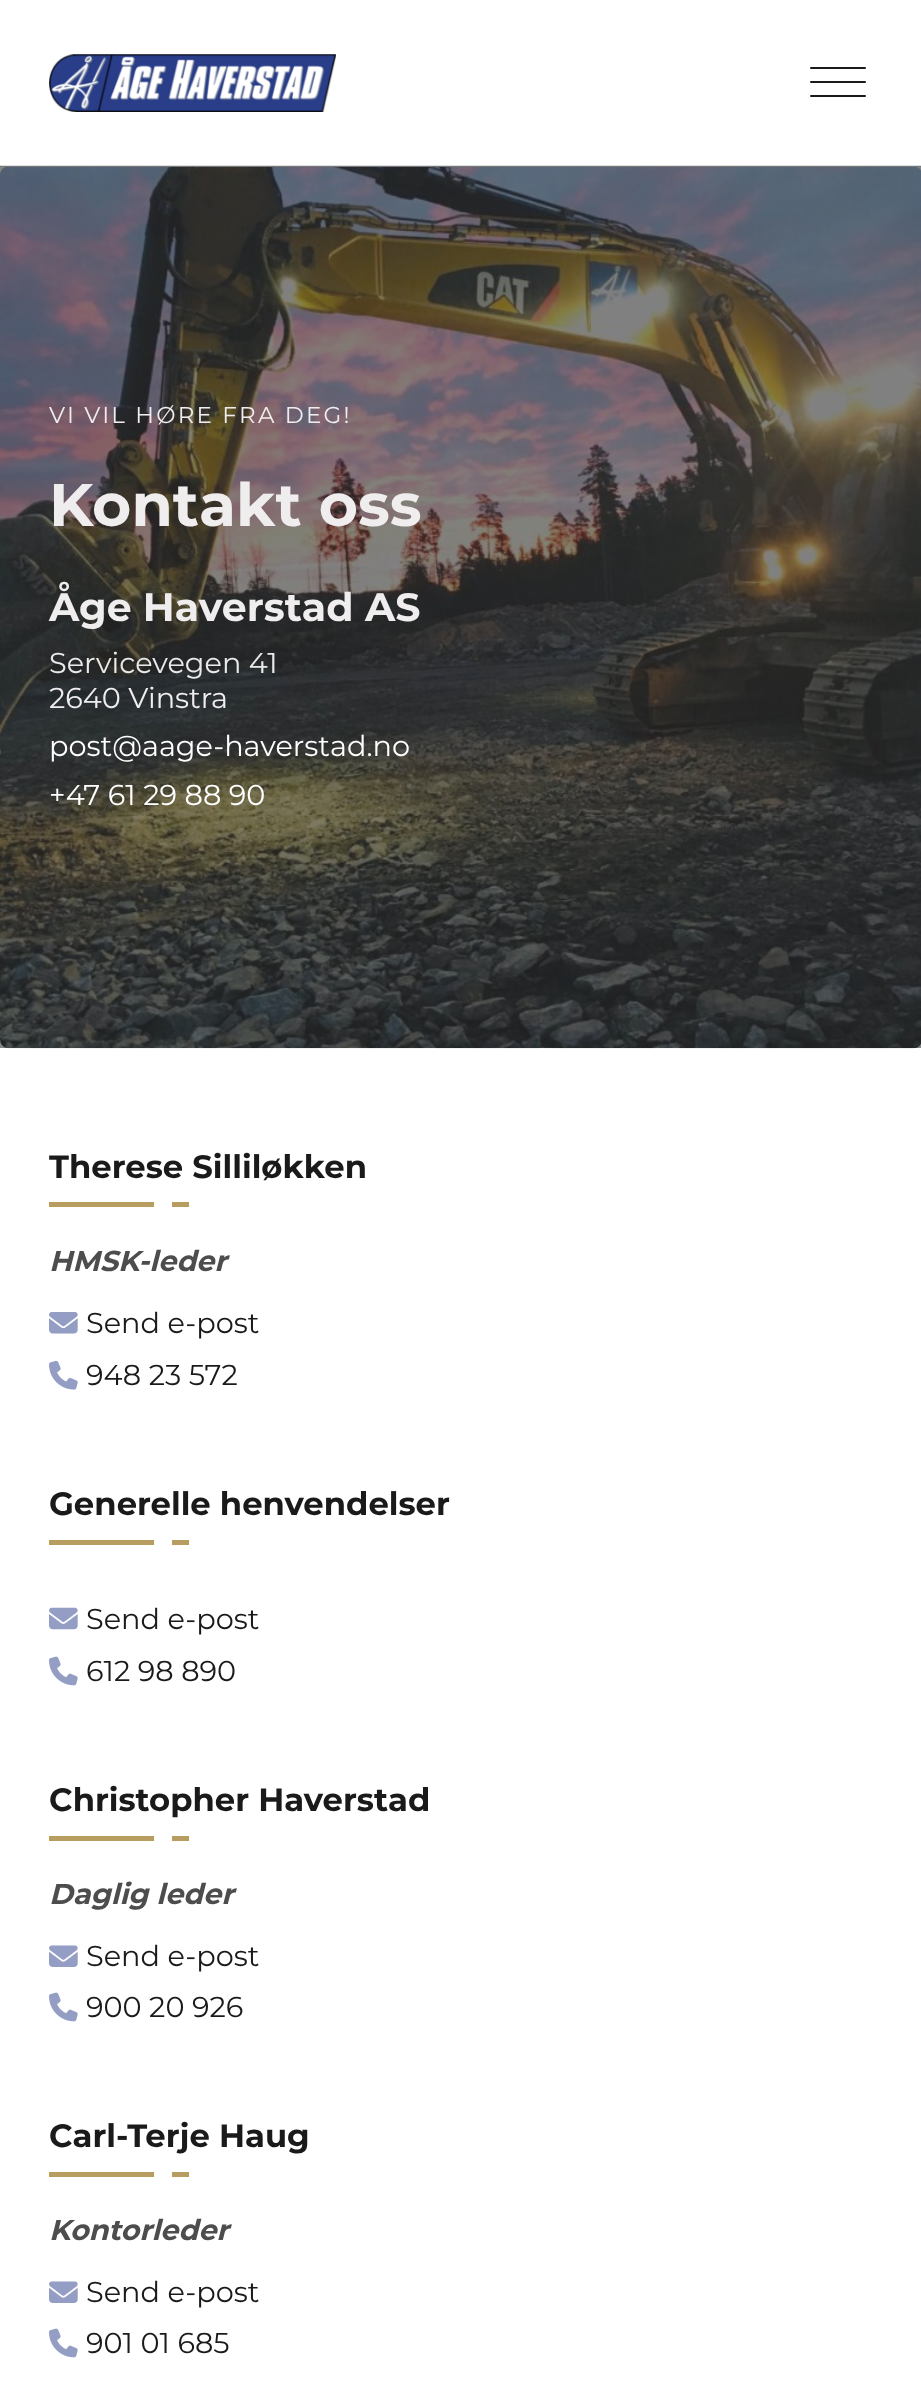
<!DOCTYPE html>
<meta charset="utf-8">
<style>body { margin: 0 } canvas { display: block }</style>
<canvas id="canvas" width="921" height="2394"></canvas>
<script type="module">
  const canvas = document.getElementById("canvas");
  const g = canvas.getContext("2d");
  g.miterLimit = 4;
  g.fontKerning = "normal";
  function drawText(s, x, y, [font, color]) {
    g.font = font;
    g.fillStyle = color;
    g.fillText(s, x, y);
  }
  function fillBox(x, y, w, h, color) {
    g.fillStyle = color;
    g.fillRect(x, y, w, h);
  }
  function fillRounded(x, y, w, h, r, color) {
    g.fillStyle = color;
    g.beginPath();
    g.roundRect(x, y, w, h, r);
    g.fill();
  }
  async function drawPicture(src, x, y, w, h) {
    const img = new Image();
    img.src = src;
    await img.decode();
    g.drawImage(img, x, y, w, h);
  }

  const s1 = ["23px Montserrat", "#EFEDEE"];
  const s2 = ["bold 60px Montserrat", "#EFEDEE"];
  const s3 = ["bold 39.5px Montserrat", "#EFEDEE"];
  const s4 = ["28.75px Montserrat", "#E9EAEA"];
  const s5 = ["28.75px Montserrat", "#EFEDEE"];
  const s6 = ["28.75px Montserrat", "#FFFFFF"];
  const s7 = ["bold 32.25px Montserrat", "#1A1A1A"];
  const s8 = ["italic bold 28.75px Montserrat", "#4D4D4D"];
  const s9 = ["28.75px Montserrat", "#1A1A1A"];

  fillBox(0, 0, 921, 2394, "#FFFFFF");
  fillBox(0, 167, 921, 881, "#858585");
  fillBox(0, 165, 921, 1, "#DDDEDF");
  fillBox(0, 166, 921, 1, "#777778");
  await drawPicture("pic1.png", 49, 54, 287, 58);
  fillRounded(810, 67, 56, 2, 1, "#1A1A1A");
  fillRounded(810, 81, 56, 2, 1, "#1A1A1A");
  fillRounded(810, 95, 56, 2, 1, "#1A1A1A");
  await drawPicture("pic2.png", 0, 167, 921, 882);
  g.letterSpacing = "2.2px";
  drawText("VI VIL HØRE FRA DEG!", 49, 423, s1);
  g.letterSpacing = "0px";
  drawText("Kontakt oss", 49, 526, s2);
  drawText("Åge Haverstad AS", 49, 621, s3);
  drawText("Servicevegen 41", 49, 673, s4);
  drawText("2640 Vinstra", 49, 708, s5);
  drawText("post@aage-haverstad.no", 49, 756, s6);
  drawText("+47 61 29 88 90", 49, 805, s6);
  drawText("Therese Silliløkken", 49, 1178, s7);
  fillBox(49, 1202, 105, 5, "#B79D60");
  fillBox(172, 1202, 17, 5, "#B79D60");
  drawText("HMSK-leder", 49, 1271, s8);
  await drawPicture("pic3.png", 49, 1312, 29, 22);
  drawText("Send e-post", 86, 1333, s9);
  await drawPicture("pic4.png", 49, 1360, 29, 30);
  drawText("948 23 572", 86, 1385, s9);
  drawText("Generelle henvendelser", 49, 1515, s7);
  fillBox(49, 1540, 105, 5, "#B79D60");
  fillBox(172, 1540, 17, 5, "#B79D60");
  await drawPicture("pic5.png", 49, 1607, 29, 23);
  drawText("Send e-post", 86, 1629, s9);
  await drawPicture("pic6.png", 49, 1656, 29, 30);
  drawText("612 98 890", 86, 1681, s9);
  drawText("Christopher Haverstad", 49, 1811, s7);
  fillBox(49, 1836, 105, 5, "#B79D60");
  fillBox(172, 1836, 17, 5, "#B79D60");
  drawText("Daglig leder", 49, 1904, s8);
  await drawPicture("pic7.png", 49, 1945, 29, 22);
  drawText("Send e-post", 86, 1966, s9);
  await drawPicture("pic6.png", 49, 1992, 29, 30);
  drawText("900 20 926", 86, 2017, s9);
  drawText("Carl-Terje Haug", 49, 2147, s7);
  fillBox(49, 2172, 105, 5, "#B79D60");
  fillBox(172, 2172, 17, 5, "#B79D60");
  drawText("Kontorleder", 49, 2240, s8);
  await drawPicture("pic7.png", 49, 2281, 29, 22);
  drawText("Send e-post", 86, 2302, s9);
  await drawPicture("pic6.png", 49, 2328, 29, 30);
  drawText("901 01 685", 86, 2353, s9);
</script>
